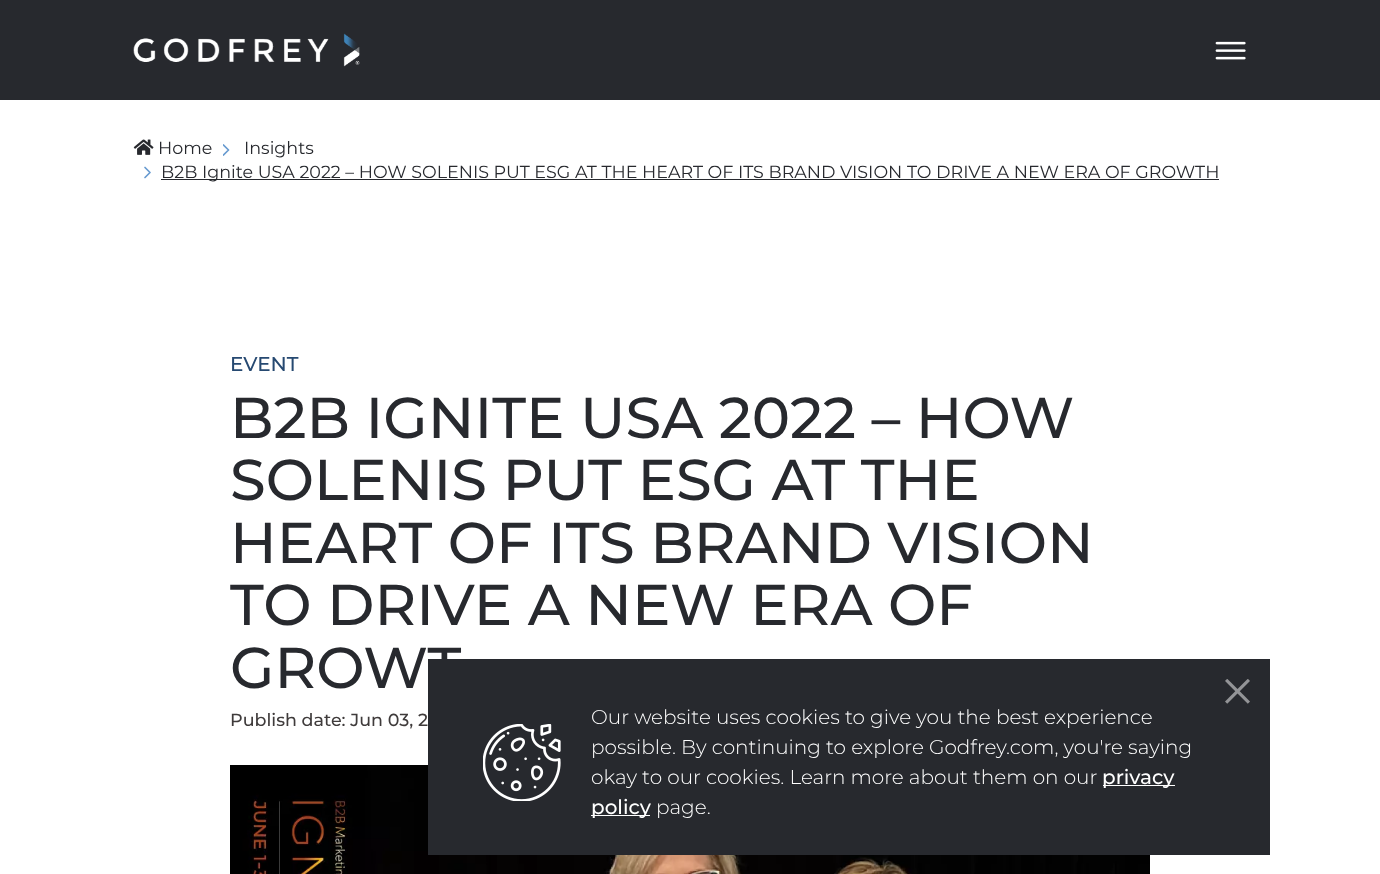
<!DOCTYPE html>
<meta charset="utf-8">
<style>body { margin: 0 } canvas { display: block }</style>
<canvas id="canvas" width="1380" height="874"></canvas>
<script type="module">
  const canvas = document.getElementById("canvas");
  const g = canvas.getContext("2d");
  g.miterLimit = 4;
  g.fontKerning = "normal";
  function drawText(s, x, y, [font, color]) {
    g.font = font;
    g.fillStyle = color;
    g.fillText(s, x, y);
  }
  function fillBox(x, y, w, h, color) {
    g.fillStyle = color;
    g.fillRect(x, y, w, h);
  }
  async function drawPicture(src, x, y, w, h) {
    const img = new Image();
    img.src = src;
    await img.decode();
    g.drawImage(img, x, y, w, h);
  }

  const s1 = ["17.5px Montserrat", "#27292E"];
  const s2 = ["500 20px Montserrat", "#264971"];
  const s3 = ["500 57.5px Montserrat", "#27292E"];
  const s4 = ["500 17.5px Montserrat", "#3F3B3B"];
  const s5 = ["300 20px Montserrat", "#FFFFFF"];
  const s6 = ["500 20px Montserrat", "#FFFFFF"];

  fillBox(0, 0, 1380, 874, "#FFFFFF");
  fillBox(0, 0, 1380, 100, "#27292E");
  await drawPicture("pic1.png", 133, 33, 227, 34);
  await drawPicture("pic2.png", 1215, 41, 31, 19);
  await drawPicture("pic3.png", 133, 139, 21, 16);
  drawText("Home", 158, 154, s1);
  g.save();
  g.beginPath();
  g.rect(223, 144, 7, 12);
  g.clip();
  g.beginPath();
  g.moveTo(223.5, 155);
  g.lineTo(228.5, 150);
  g.lineTo(223.5, 145);
  g.strokeStyle = "#689BD0";
  g.lineWidth = 1.7;
  g.lineCap = "round";
  g.lineJoin = "round";
  g.stroke();
  g.restore();
  drawText("Insights", 244, 154, s1);
  g.beginPath();
  g.moveTo(145, 177.5);
  g.lineTo(150, 172.5);
  g.lineTo(145, 167.5);
  g.strokeStyle = "#689BD0";
  g.lineWidth = 1.7;
  g.lineCap = "round";
  g.lineJoin = "round";
  g.stroke();
  fillBox(161, 179, 1058, 1, "#27292E");
  drawText("B2B Ignite USA 2022 – HOW SOLENIS PUT ESG AT THE HEART OF ITS BRAND VISION TO DRIVE A NEW ERA OF GROWTH", 161, 178, s1);
  drawText("EVENT", 230, 371, s2);
  drawText("B2B IGNITE USA 2022 – HOW", 230, 438, s3);
  drawText("SOLENIS PUT ESG AT THE", 230, 500, s3);
  drawText("HEART OF ITS BRAND VISION", 230, 563, s3);
  drawText("TO DRIVE A NEW ERA OF", 230, 625, s3);
  drawText("GROWT", 230, 688, s3);
  drawText("Publish date: Jun 03, 2", 230, 726, s4);
  await drawPicture("pic4.png", 230, 765, 920, 109);
  fillBox(428, 659, 842, 196, "#27292E");
  await drawPicture("pic5.png", 1225, 679, 25, 25);
  await drawPicture("pic6.png", 483, 724, 78, 77);
  drawText("Our website uses cookies to give you the best experience", 591, 724, s5);
  drawText("possible. By continuing to explore Godfrey.com, you're saying", 591, 754, s5);
  drawText("okay to our cookies. Learn more about them on our", 591, 784, s5);
  fillBox(1103, 785, 72, 1, "#FFFFFF");
  drawText("privacy", 1102, 784, s6);
  fillBox(591, 815, 59, 1, "#FFFFFF");
  drawText("policy", 591, 814, s6);
  drawText("page.", 656, 814, s5);
</script>
